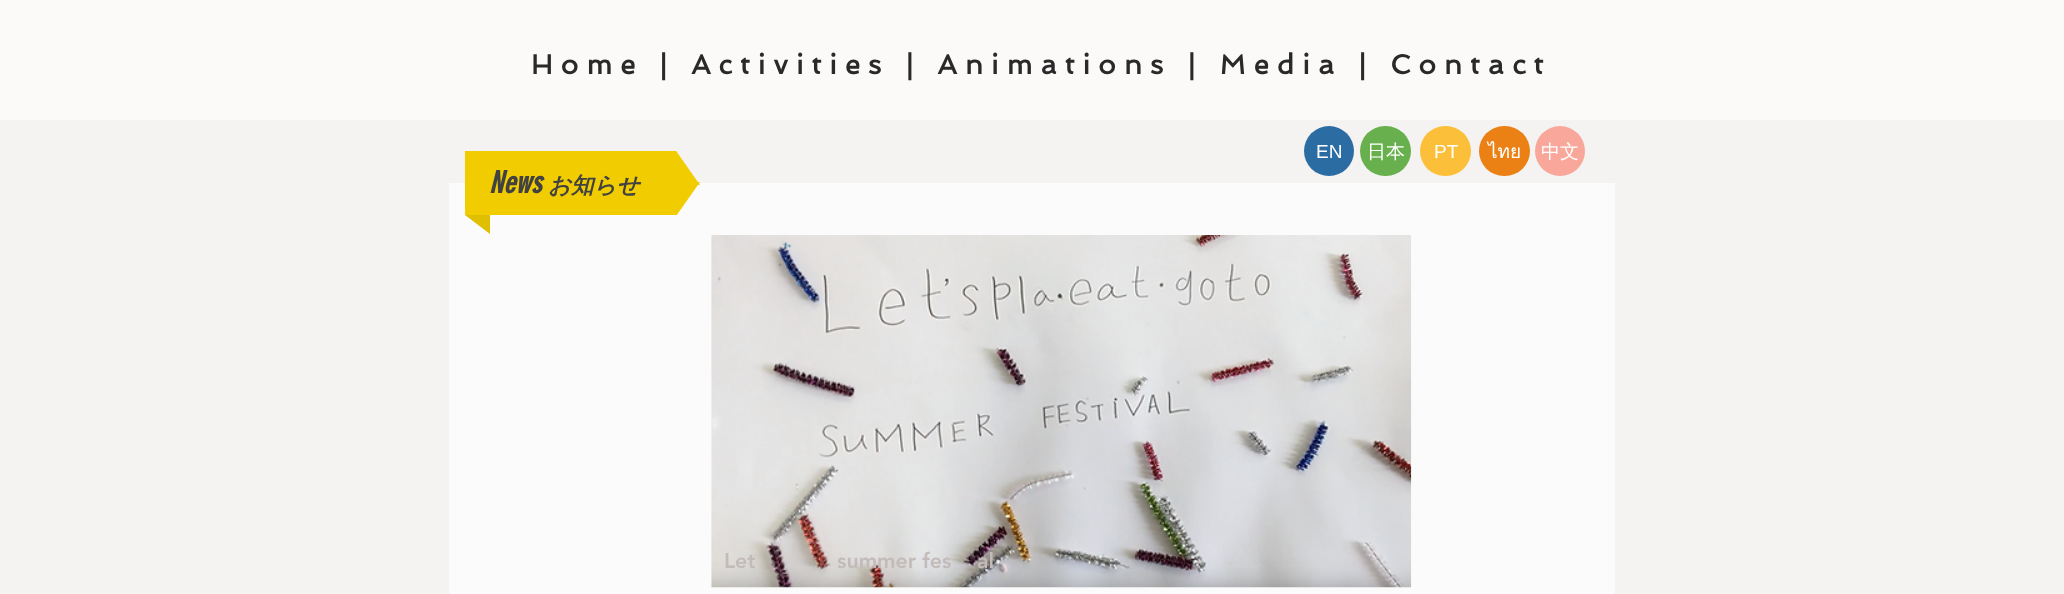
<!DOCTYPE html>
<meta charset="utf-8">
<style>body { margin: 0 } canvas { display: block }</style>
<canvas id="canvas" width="2064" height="594"></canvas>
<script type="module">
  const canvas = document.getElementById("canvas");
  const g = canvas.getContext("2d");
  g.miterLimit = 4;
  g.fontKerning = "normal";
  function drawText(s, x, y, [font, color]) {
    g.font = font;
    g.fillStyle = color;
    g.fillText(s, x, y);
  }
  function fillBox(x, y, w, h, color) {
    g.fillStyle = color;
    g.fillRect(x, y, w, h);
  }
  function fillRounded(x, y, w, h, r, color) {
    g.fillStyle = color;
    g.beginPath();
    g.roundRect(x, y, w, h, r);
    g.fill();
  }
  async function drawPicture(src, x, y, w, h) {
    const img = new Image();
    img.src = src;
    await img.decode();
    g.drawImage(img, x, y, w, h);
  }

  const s1 = ["bold 27.5px Spinnaker", "#292929"];
  const s2 = ["19px Liberation Sans", "#FFFFFF"];
  const s3 = ["500 19px WenQuanYi Zen Hei", "#FFFFFF"];
  const s4 = ["19px Loma", "#FFFFFF"];
  const s5 = ["italic bold 30px 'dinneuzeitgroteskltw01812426'", "#414141"];
  const s6 = ["italic bold 22.5px WenQuanYi Zen Hei", "#414141"];
  const s7 = ["900 21.25px 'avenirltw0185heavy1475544'", "#C2BBBA"];

  fillBox(0, 0, 2064, 594, "#F4F3F2");
  fillBox(0, 0, 2064, 120, "#FBFAF9");
  g.letterSpacing = "8.25px";
  drawText("Home | Activities | Animations | Media | Contact", 531, 74, s1);
  g.fillStyle = "#2B6CA3";
  g.beginPath();
  g.arc(1329, 151, 25, 0, Math.PI * 2);
  g.fill();
  g.letterSpacing = "0px";
  drawText("EN", 1316, 158, s2);
  fillRounded(1360, 126, 51, 50, 25, "#68B04D");
  drawText("日本", 1367, 158, s3);
  fillRounded(1420, 126, 51, 50, 25, "#FCBF3A");
  drawText("PT", 1434, 158, s2);
  fillRounded(1479, 126, 51, 50, 25, "#EB8015");
  drawText("ไทย", 1488, 158, s4);
  g.fillStyle = "#F9A79B";
  g.beginPath();
  g.arc(1560, 151, 25, 0, Math.PI * 2);
  g.fill();
  drawText("中文", 1541, 158, s3);
  fillBox(449, 183, 1166, 411, "#FBFBFB");
  g.save();
  g.beginPath();
  g.rect(465, 151, 235, 64);
  g.clip();
  g.fillStyle = "#F1CC01";
  g.beginPath();
  g.moveTo(28, 182);
  g.lineTo(700, 182);
  g.lineTo(262, 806);
  g.lineTo(28, 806);
  g.closePath();
  g.fill();
  g.beginPath();
  g.moveTo(700, 185);
  g.lineTo(28, 185);
  g.lineTo(28, -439);
  g.lineTo(262, -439);
  g.closePath();
  g.fill();
  g.restore();
  drawText("News", 489, 193, s5);
  drawText("お知らせ", 548, 193, s6);
  g.fillStyle = "#E0BE00";
  g.beginPath();
  g.moveTo(490, 215);
  g.lineTo(490, 234);
  g.lineTo(465, 215);
  g.closePath();
  g.fill();
  await drawPicture("pic1.png", 711, 235, 701, 353);
  drawText("Let", 724, 568, s7);
  drawText("summer fes", 837, 568, s7);
  drawText("al", 977, 568, s7);
</script>
